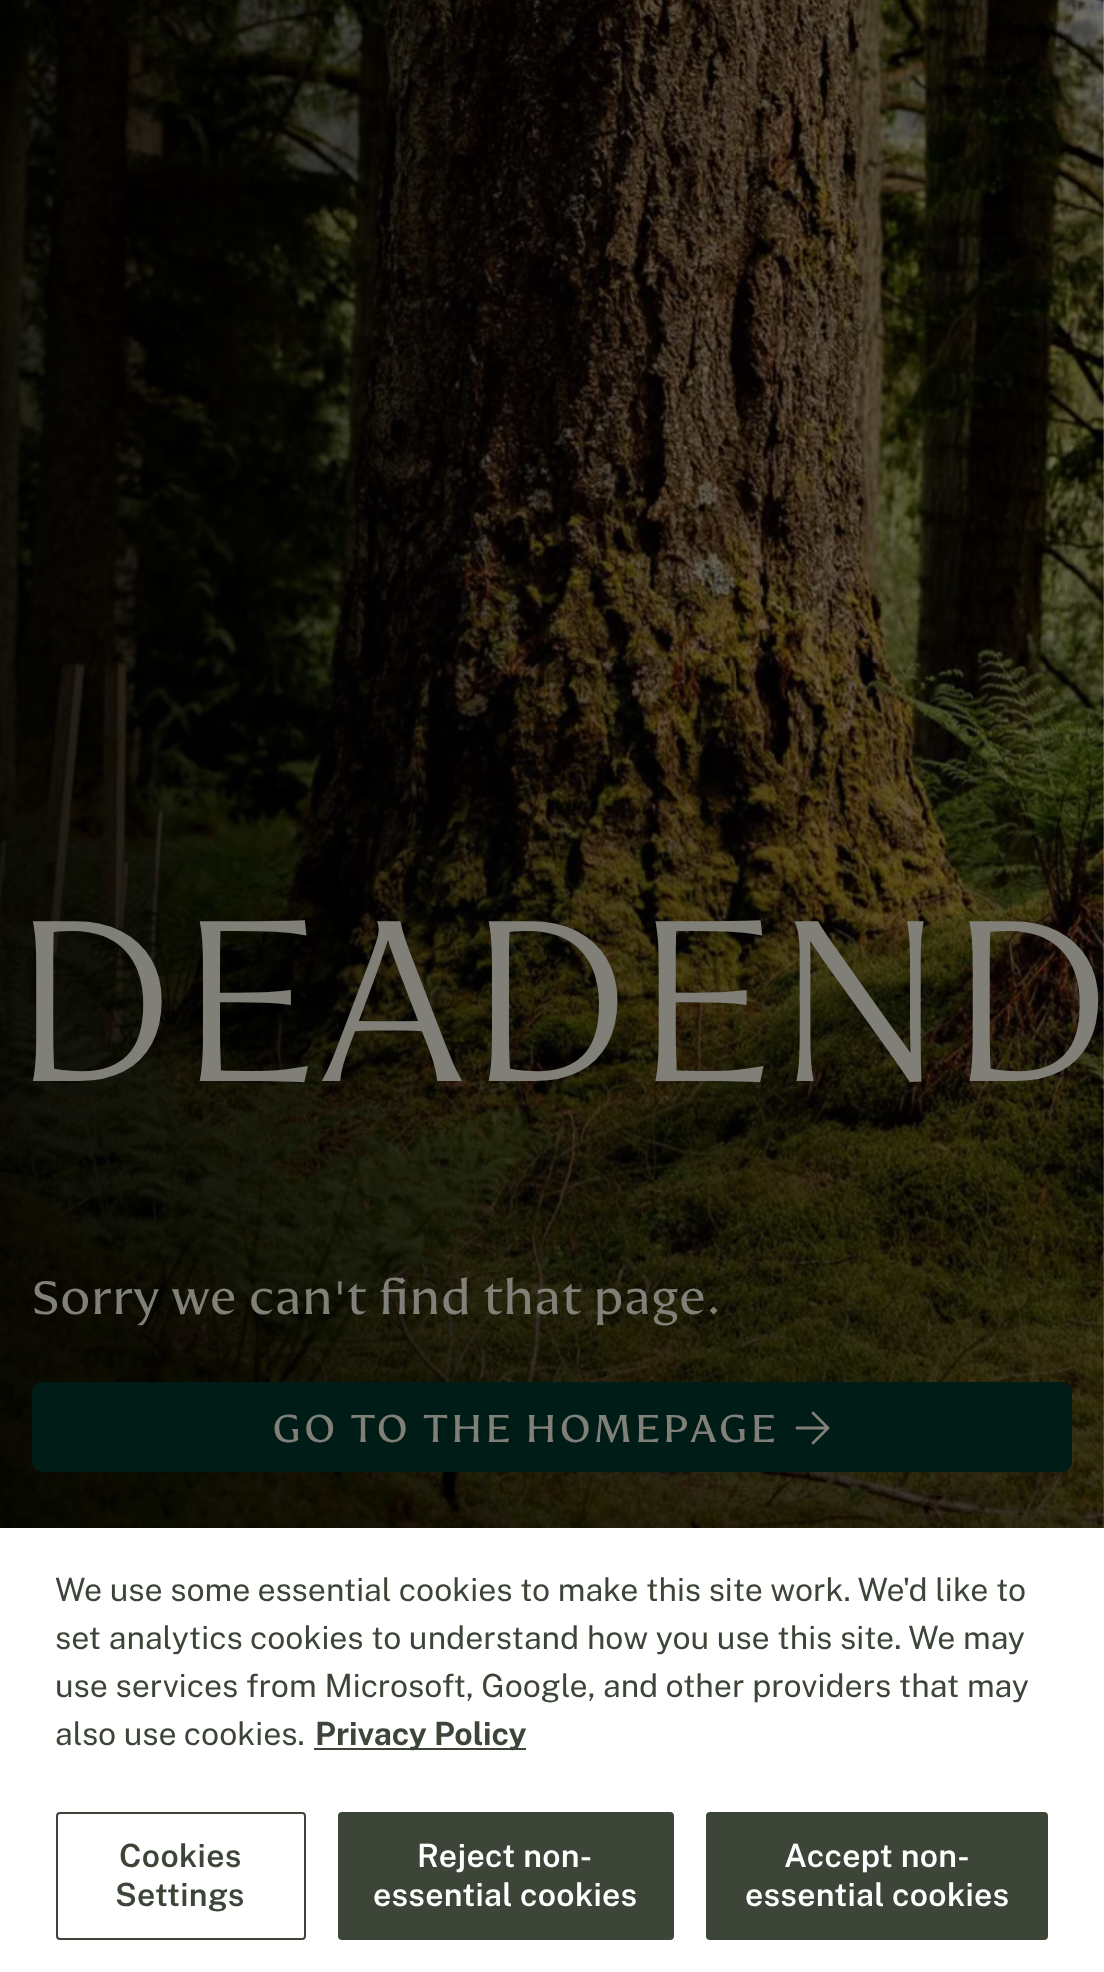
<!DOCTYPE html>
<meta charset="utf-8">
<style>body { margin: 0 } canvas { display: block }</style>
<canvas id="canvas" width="1104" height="1972"></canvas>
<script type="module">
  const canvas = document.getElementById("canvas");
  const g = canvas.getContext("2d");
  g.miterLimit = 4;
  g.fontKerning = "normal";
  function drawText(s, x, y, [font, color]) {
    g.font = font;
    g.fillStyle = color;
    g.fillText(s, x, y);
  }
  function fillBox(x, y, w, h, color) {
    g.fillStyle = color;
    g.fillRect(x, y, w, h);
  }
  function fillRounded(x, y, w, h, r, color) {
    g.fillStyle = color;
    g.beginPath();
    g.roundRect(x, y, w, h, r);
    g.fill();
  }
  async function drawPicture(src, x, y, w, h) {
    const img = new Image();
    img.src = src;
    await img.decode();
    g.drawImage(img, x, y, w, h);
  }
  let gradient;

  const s1 = ["100 236.25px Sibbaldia", "#808078"];
  const s2 = ["48px Sibbaldia", "#808078"];
  const s3 = ["40px Sibbaldia", "#808078"];
  const s4 = ["32px Public Sans", "#3D4539"];
  const s5 = ["bold 32px Public Sans", "#3D4539"];
  const s6 = ["600 32px Public Sans", "#3D4539"];
  const s7 = ["600 32px Public Sans", "#FFFFFF"];

  fillBox(0, 0, 1104, 1972, "#FFFFFF");
  await drawPicture("pic1.png", 0, 0, 1104, 1528);
  gradient = g.createLinearGradient(0, 646, 1104, 646);
  gradient.addColorStop(0, "rgba(0, 0, 0, 0.6)");
  gradient.addColorStop(0.47, "rgba(0, 0, 0, 0)");
  g.fillStyle = gradient;
  g.fillRect(0, 0, 492, 1528);
  gradient = g.createLinearGradient(-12, 1625, 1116, -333);
  gradient.addColorStop(0.12, "rgba(0, 0, 0, 0.6)");
  gradient.addColorStop(0.57, "rgba(0, 0, 0, 0)");
  g.fillStyle = gradient;
  g.fillRect(0, 328, 1104, 1200);
  drawText("DEADEND", 10, 1081, s1);
  drawText("Sorry we can't find that page.", 32, 1314, s2);
  fillRounded(32, 1382, 1040, 90, 10, "#001C16");
  g.letterSpacing = "2.4px";
  drawText("GO TO THE HOMEPAGE", 272, 1442, s3);
  await drawPicture("pic2.png", 795, 1411, 35, 34);
  g.fillStyle = "rgba(0, 0, 0, 0.2)";
  g.filter = "blur(18px)";
  g.beginPath();
  g.rect(0, 1528, 1104, 444);
  g.fill();
  g.filter = "none";
  fillBox(0, 1528, 1104, 444, "#FFFFFF");
  g.letterSpacing = "0px";
  drawText("We use some essential cookies to make this site work. We'd like to", 55, 1601, s4);
  drawText("set analytics cookies to understand how you use this site. We may", 55, 1649, s4);
  drawText("use services from Microsoft, Google, and other providers that may", 55, 1697, s4);
  drawText("also use cookies.", 55, 1745, s4);
  fillBox(314, 1748, 212, 2, "#3D4539");
  drawText("Privacy Policy", 315, 1745, s5);
  g.beginPath();
  g.roundRect(57, 1813, 248, 126, 3);
  g.strokeStyle = "#3D4539";
  g.lineWidth = 2;
  g.stroke();
  g.letterSpacing = "0.3px";
  drawText("Cookies", 119, 1867, s6);
  drawText("Settings", 115, 1906, s6);
  g.beginPath();
  g.roundRect(339, 1813, 334, 126, 3);
  g.fill();
  g.stroke();
  drawText("Reject non-", 417, 1867, s7);
  drawText("essential cookies", 373, 1906, s7);
  g.fillStyle = "#3D4539";
  g.beginPath();
  g.roundRect(707, 1813, 340, 126, 3);
  g.fill();
  g.stroke();
  drawText("Accept non-", 784, 1867, s7);
  drawText("essential cookies", 745, 1906, s7);
</script>
